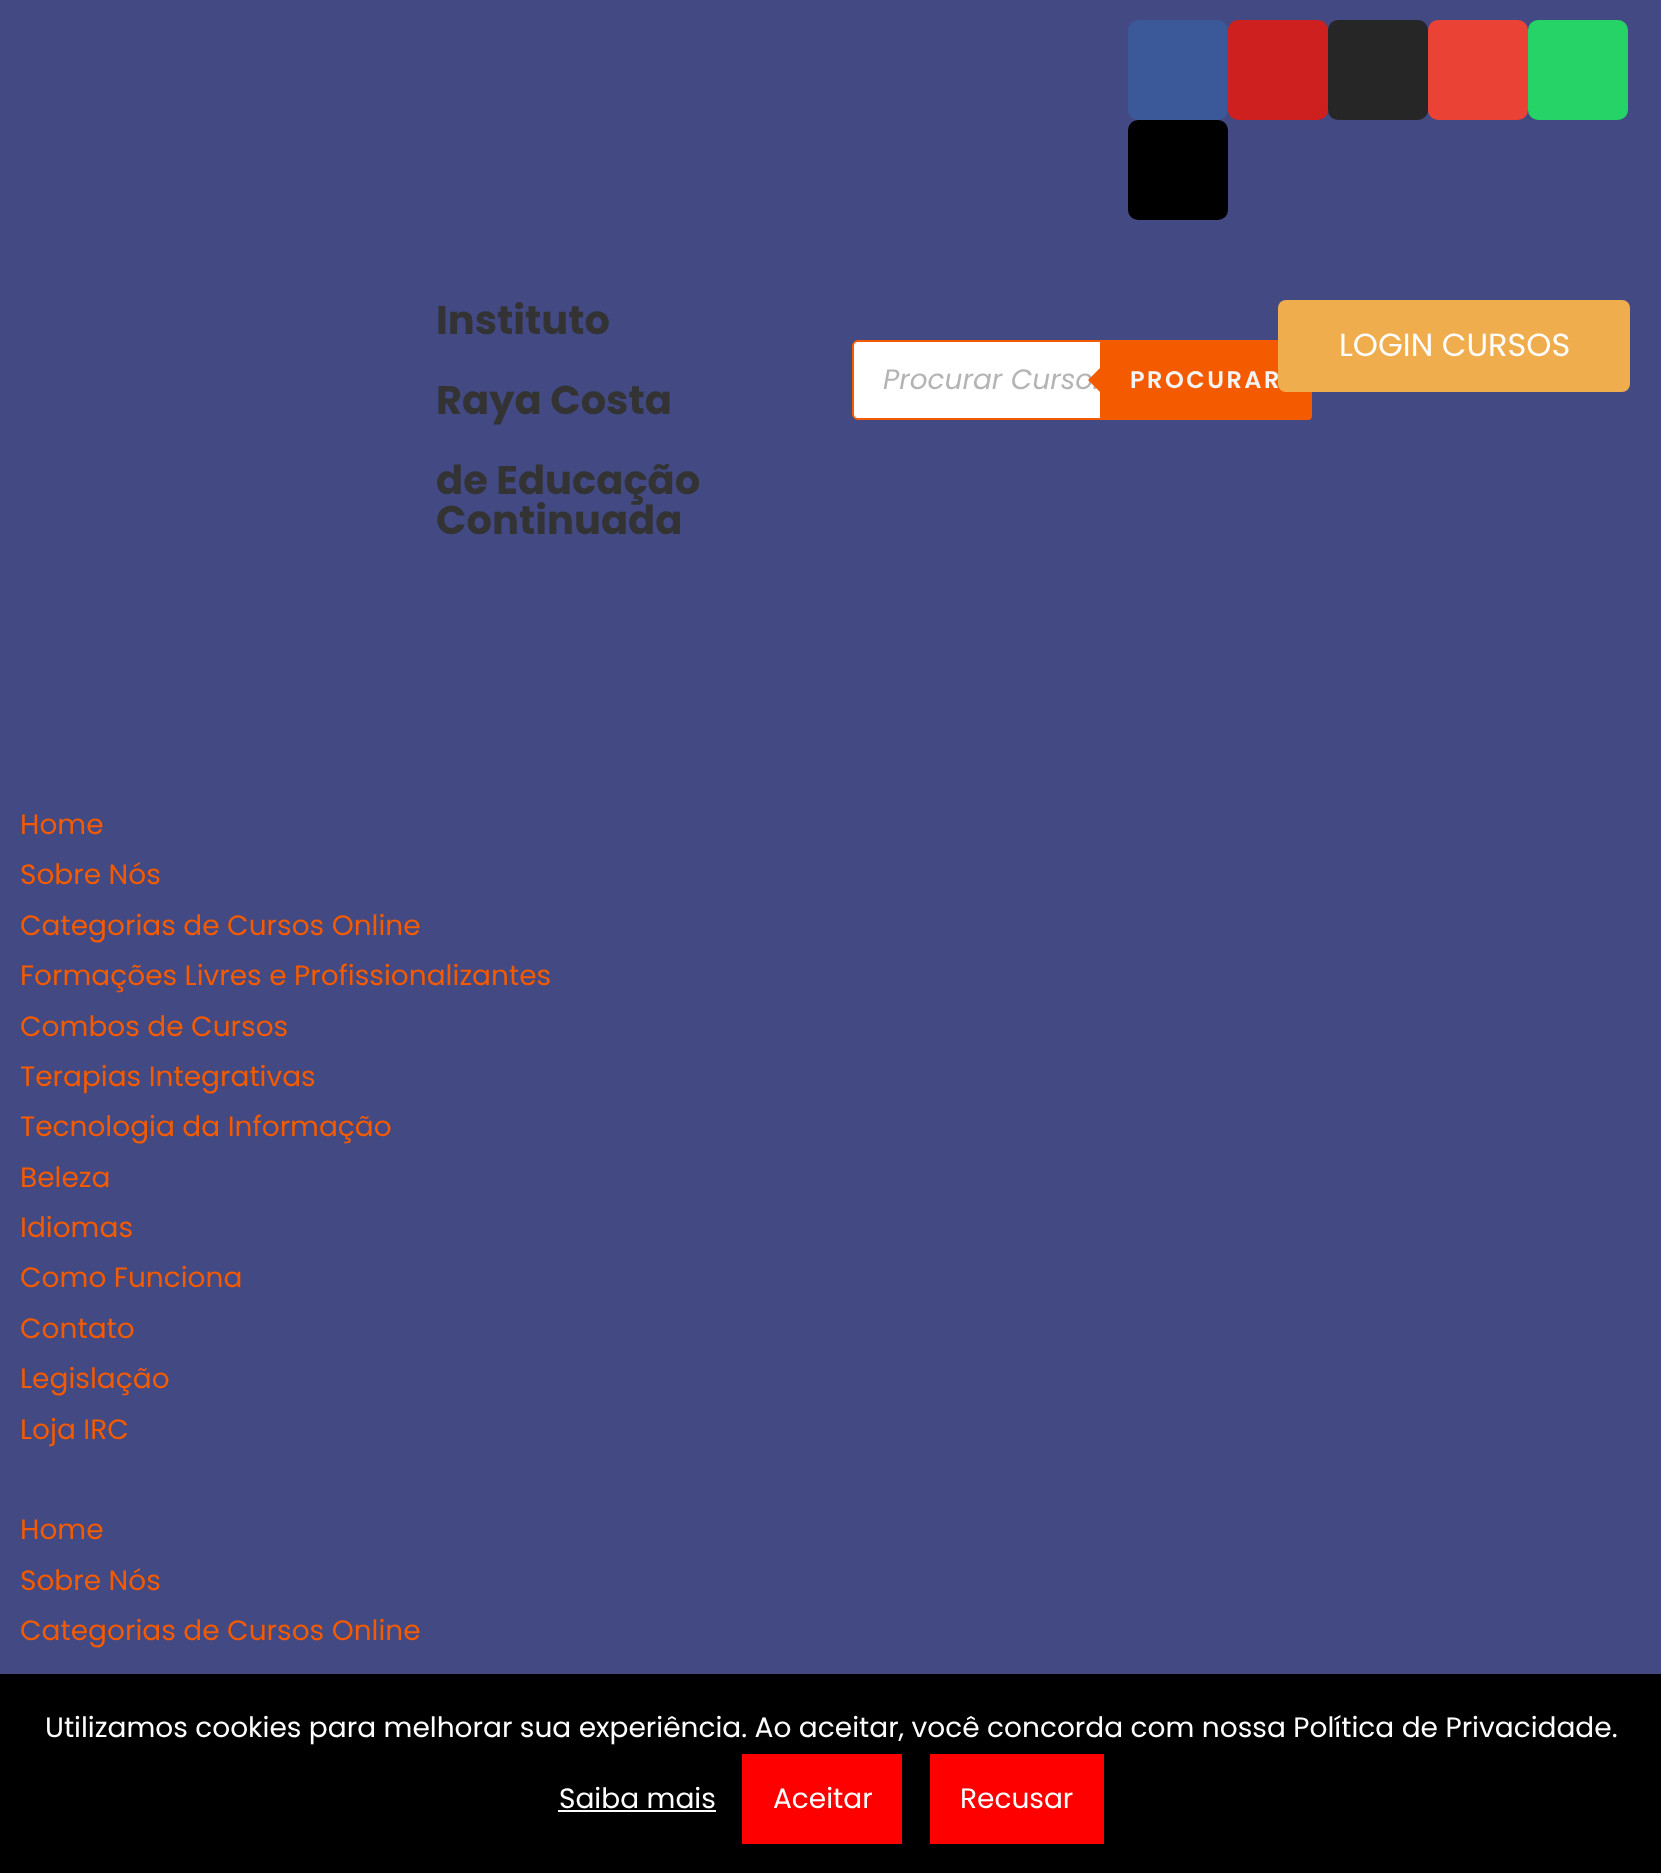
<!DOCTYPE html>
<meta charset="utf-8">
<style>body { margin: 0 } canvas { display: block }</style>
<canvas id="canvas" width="1661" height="1873"></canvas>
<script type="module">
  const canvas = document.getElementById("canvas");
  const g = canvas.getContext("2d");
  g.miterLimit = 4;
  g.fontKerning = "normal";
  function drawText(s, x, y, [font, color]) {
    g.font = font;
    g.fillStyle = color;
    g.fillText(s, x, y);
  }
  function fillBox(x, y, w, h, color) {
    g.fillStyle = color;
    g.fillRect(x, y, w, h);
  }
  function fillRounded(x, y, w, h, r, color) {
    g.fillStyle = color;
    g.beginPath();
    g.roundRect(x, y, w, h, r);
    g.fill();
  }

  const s1 = ["bold 40px Poppins", "#333333"];
  const s2 = ["32px Poppins", "#FFFFFF"];
  const s3 = ["italic 28px Poppins", "#B6B3B3"];
  const s4 = ["600 24px Poppins", "#F4F4F4"];
  const s5 = ["28px Poppins", "#F45B00"];
  const s6 = ["28px Poppins", "#FFFFFF"];

  fillBox(0, 0, 1661, 1873, "#434982");
  fillRounded(1128, 20, 100, 100, 10, "#3B5998");
  fillRounded(1228, 20, 100, 100, 10, "#CD201F");
  fillRounded(1328, 20, 100, 100, 10, "#262626");
  fillRounded(1428, 20, 100, 100, 10, "#EA4335");
  fillRounded(1528, 20, 100, 100, 10, "#25D366");
  fillRounded(1128, 120, 100, 100, 10, "#000000");
  drawText("Instituto", 436, 334, s1);
  drawText("Raya Costa", 436, 414, s1);
  drawText("de Educação", 436, 494, s1);
  drawText("Continuada", 436, 534, s1);
  g.fillStyle = "#FFFFFF";
  g.beginPath();
  g.roundRect(853, 341, 458, 78, 5);
  g.fill();
  g.strokeStyle = "#F45B00";
  g.lineWidth = 2;
  g.stroke();
  g.fillStyle = "#F45B00";
  g.beginPath();
  g.roundRect(1100, 340, 212, 80, [0, 4, 4, 0]);
  g.fill();
  fillRounded(1278, 300, 352, 92, 8, "#F0AD4E");
  drawText("LOGIN CURSOS", 1339, 356, s2);
  drawText("Procurar Curso.", 883, 389, s3);
  g.fillStyle = "#F45B00";
  g.beginPath();
  g.moveTo(1104, 364);
  g.lineTo(1104, 396);
  g.lineTo(1088, 380);
  g.closePath();
  g.fill();
  g.letterSpacing = "2.5px";
  drawText("PROCURAR", 1130, 388, s4);
  g.letterSpacing = "0px";
  drawText("Home", 20, 834, s5);
  drawText("Sobre Nós", 20, 884, s5);
  drawText("Categorias de Cursos Online", 20, 935, s5);
  drawText("Formações Livres e Profissionalizantes", 20, 985, s5);
  drawText("Combos de Cursos", 20, 1036, s5);
  drawText("Terapias Integrativas", 20, 1086, s5);
  drawText("Tecnologia da Informação", 20, 1136, s5);
  drawText("Beleza", 20, 1187, s5);
  drawText("Idiomas", 20, 1237, s5);
  drawText("Como Funciona", 20, 1287, s5);
  drawText("Contato", 20, 1338, s5);
  drawText("Legislação", 20, 1388, s5);
  drawText("Loja IRC", 20, 1439, s5);
  drawText("Home", 20, 1539, s5);
  drawText("Sobre Nós", 20, 1590, s5);
  drawText("Categorias de Cursos Online", 20, 1640, s5);
  fillBox(0, 1674, 1661, 199, "#000000");
  drawText("Utilizamos cookies para melhorar sua experiência. Ao aceitar, você concorda com nossa Política de Privacidade.", 45, 1737, s6);
  drawText("Saiba mais", 559, 1808, s6);
  fillBox(558, 1810, 158, 2, "#FFFFFF");
  fillBox(742, 1754, 160, 90, "#FF0000");
  drawText("Aceitar", 773, 1808, s6);
  fillBox(930, 1754, 174, 90, "#FF0000");
  drawText("Recusar", 960, 1808, s6);
</script>
